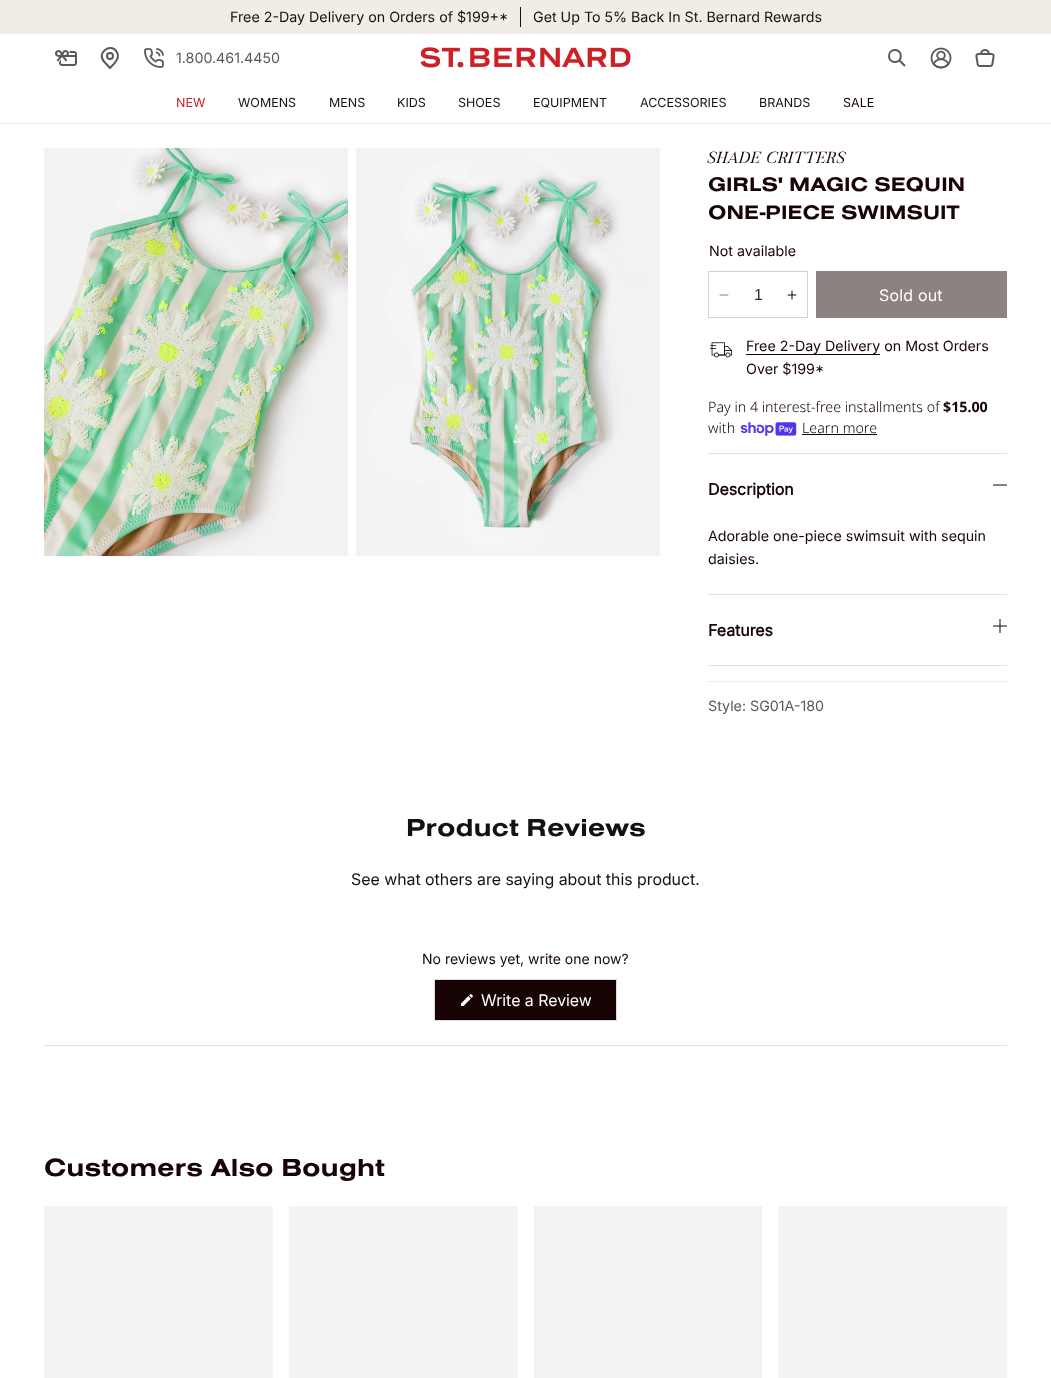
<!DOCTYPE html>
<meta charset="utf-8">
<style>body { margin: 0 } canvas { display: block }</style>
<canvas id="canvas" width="1051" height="1378"></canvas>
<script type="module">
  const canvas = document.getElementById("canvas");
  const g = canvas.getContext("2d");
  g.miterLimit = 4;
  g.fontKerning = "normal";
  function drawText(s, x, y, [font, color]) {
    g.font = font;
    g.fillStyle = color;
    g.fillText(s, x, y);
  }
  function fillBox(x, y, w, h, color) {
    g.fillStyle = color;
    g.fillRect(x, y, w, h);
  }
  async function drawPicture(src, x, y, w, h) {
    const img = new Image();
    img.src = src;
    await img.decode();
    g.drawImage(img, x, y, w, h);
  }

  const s1 = ["14.25px Inter", "#121212"];
  const s2 = ["14.25px Inter", "#5D5758"];
  const s3 = ["12.5px Inter", "#C92028"];
  const s4 = ["12.5px Inter", "#121212"];
  const s5 = ["12.5px Inter", "#180405"];
  const s6 = ["italic 16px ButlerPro", "#180405"];
  const s7 = ["bold 20.25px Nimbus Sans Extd", "#180405"];
  const s8 = ["14.25px Inter", "#180405"];
  const s9 = ["16px Liberation Sans", "#3B2A2B"];
  const s10 = ["16px 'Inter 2'", "#FFFFFF"];
  const s11 = ["300 14.25px Noto Sans", "#180405"];
  const s12 = ["bold 14.25px Noto Sans", "#180405"];
  const s13 = ["bold 16px Inter", "#180405"];
  const s14 = ["bold 25.6px Nimbus Sans Extd", "#121212"];
  const s15 = ["16px 'Inter 2'", "#121212"];
  const s16 = ["14px Inter", "#180405"];
  const s17 = ["bold 25.6px Nimbus Sans Extd", "#180405"];

  fillBox(0, 0, 1051, 1378, "#FFFFFF");
  fillBox(0, 0, 1051, 34, "#F2EDE4");
  drawText("Free 2-Day Delivery on Orders of $199+*", 230, 22, s1);
  fillBox(520, 7, 1, 20, "#121212");
  drawText("Get Up To 5% Back In St. Bernard Rewards", 533, 22, s1);
  fillBox(0, 123, 1051, 1, "#ECECEC");
  await drawPicture("pic1.png", 55, 50, 22, 16);
  g.beginPath();
  g.moveTo(104, 61.5);
  g.lineTo(110, 68);
  g.bezierCurveTo(114, 63.5, 121, 58, 116.5, 51.5);
  g.bezierCurveTo(110, 42.5, 96.5, 53, 104, 61.5);
  g.closePath();
  g.strokeStyle = "#5D5758";
  g.lineWidth = 2;
  g.lineCap = "round";
  g.lineJoin = "round";
  g.stroke();
  g.beginPath();
  g.arc(110, 56, 3, 0, Math.PI * 2);
  g.stroke();
  await drawPicture("pic2.png", 144, 48, 20, 20);
  drawText("1.800.461.4450", 176, 63, s2);
  await drawPicture("pic3.png", 420, 47, 211, 21);
  g.beginPath();
  g.moveTo(895, 62);
  g.bezierCurveTo(902.5, 62, 903, 50, 895, 50);
  g.bezierCurveTo(887, 50, 887, 62, 895, 62);
  g.closePath();
  g.moveTo(899, 60);
  g.lineTo(905, 66);
  g.lineCap = "butt";
  g.lineJoin = "miter";
  g.stroke();
  await drawPicture("pic4.png", 930, 47, 22, 22);
  await drawPicture("pic5.png", 975, 49, 20, 18);
  drawText("NEW", 176, 107, s3);
  drawText("WOMENS", 238, 107, s4);
  drawText("MENS", 329, 107, s4);
  drawText("KIDS", 397, 107, s4);
  drawText("SHOES", 458, 107, s4);
  drawText("EQUIPMENT", 533, 107, s4);
  drawText("ACCESSORIES", 640, 107, s4);
  drawText("BRANDS", 759, 107, s4);
  drawText("SALE", 843, 107, s5);
  await drawPicture("pic6.png", 44, 148, 304, 408);
  await drawPicture("pic7.png", 356, 148, 304, 408);
  g.letterSpacing = "0.25px";
  drawText("SHADE CRITTERS", 708, 163, s6);
  g.letterSpacing = "0px";
  drawText("GIRLS' MAGIC SEQUIN", 708, 191, s7);
  drawText("ONE-PIECE SWIMSUIT", 708, 219, s7);
  drawText("Not available", 709, 256, s8);
  await drawPicture("pic8.png", 719, 294, 10, 2);
  await drawPicture("pic9.png", 787, 290, 10, 10);
  g.strokeStyle = "#D4D1D2";
  g.lineWidth = 1;
  g.strokeRect(708.5, 271.5, 99, 46);
  drawText("1", 754, 300, s9);
  fillBox(816, 271, 191, 47, "#8C8282");
  g.letterSpacing = "0.25px";
  drawText("Sold out", 879, 301, s10);
  await drawPicture("pic10.png", 710, 342, 22, 16);
  g.letterSpacing = "0px";
  drawText("Free 2-Day Delivery on Most Orders", 746, 351, s8);
  fillBox(746, 354, 134, 1, "#180405");
  drawText("Over $199*", 746, 374, s8);
  drawText("Pay in 4 interest-free installments of", 708, 412, s11);
  drawText("$15.00", 943, 412, s12);
  drawText("with", 708, 433, s11);
  await drawPicture("pic11.png", 740, 422, 57, 14);
  drawText("Learn more", 802, 433, s11);
  fillBox(802, 434, 75, 1, "#180405");
  fillBox(708, 453, 299, 1, "#E5E1E1");
  fillBox(708, 594, 299, 1, "#E5E1E1");
  drawText("Description", 708, 495, s13);
  g.beginPath();
  g.moveTo(993, 485);
  g.lineTo(1007, 485);
  g.strokeStyle = "#180405";
  g.stroke();
  drawText("Adorable one-piece swimsuit with sequin", 708, 541, s8);
  drawText("daisies.", 708, 564, s8);
  fillBox(708, 665, 299, 1, "#E5E1E1");
  drawText("Features", 708, 636, s13);
  g.beginPath();
  g.moveTo(993, 626);
  g.lineTo(1007, 626);
  g.moveTo(1000, 633);
  g.lineTo(1000, 619);
  g.stroke();
  fillBox(708, 681, 299, 1, "#EDEBEB");
  drawText("Style: SG01A-180", 708, 711, s2);
  drawText("Product Reviews", 406, 836, s14);
  drawText("See what others are saying about this product.", 351, 885, s15);
  fillBox(44, 1045, 963, 1, "#E6E1E1");
  drawText("No reviews yet, write one now?", 422, 964, s16);
  g.beginPath();
  g.rect(434.5, 979.5, 182, 41);
  g.fill();
  g.strokeStyle = "#DBDDE4";
  g.stroke();
  await drawPicture("pic12.png", 461, 994, 12, 12);
  drawText("Write a Review", 481, 1006, s10);
  drawText("Customers Also Bought", 44, 1176, s17);
  fillBox(44, 1206, 229, 172, "#F3F3F3");
  fillBox(289, 1206, 229, 172, "#F3F3F3");
  fillBox(534, 1206, 228, 172, "#F3F3F3");
  fillBox(778, 1206, 229, 172, "#F3F3F3");
</script>
